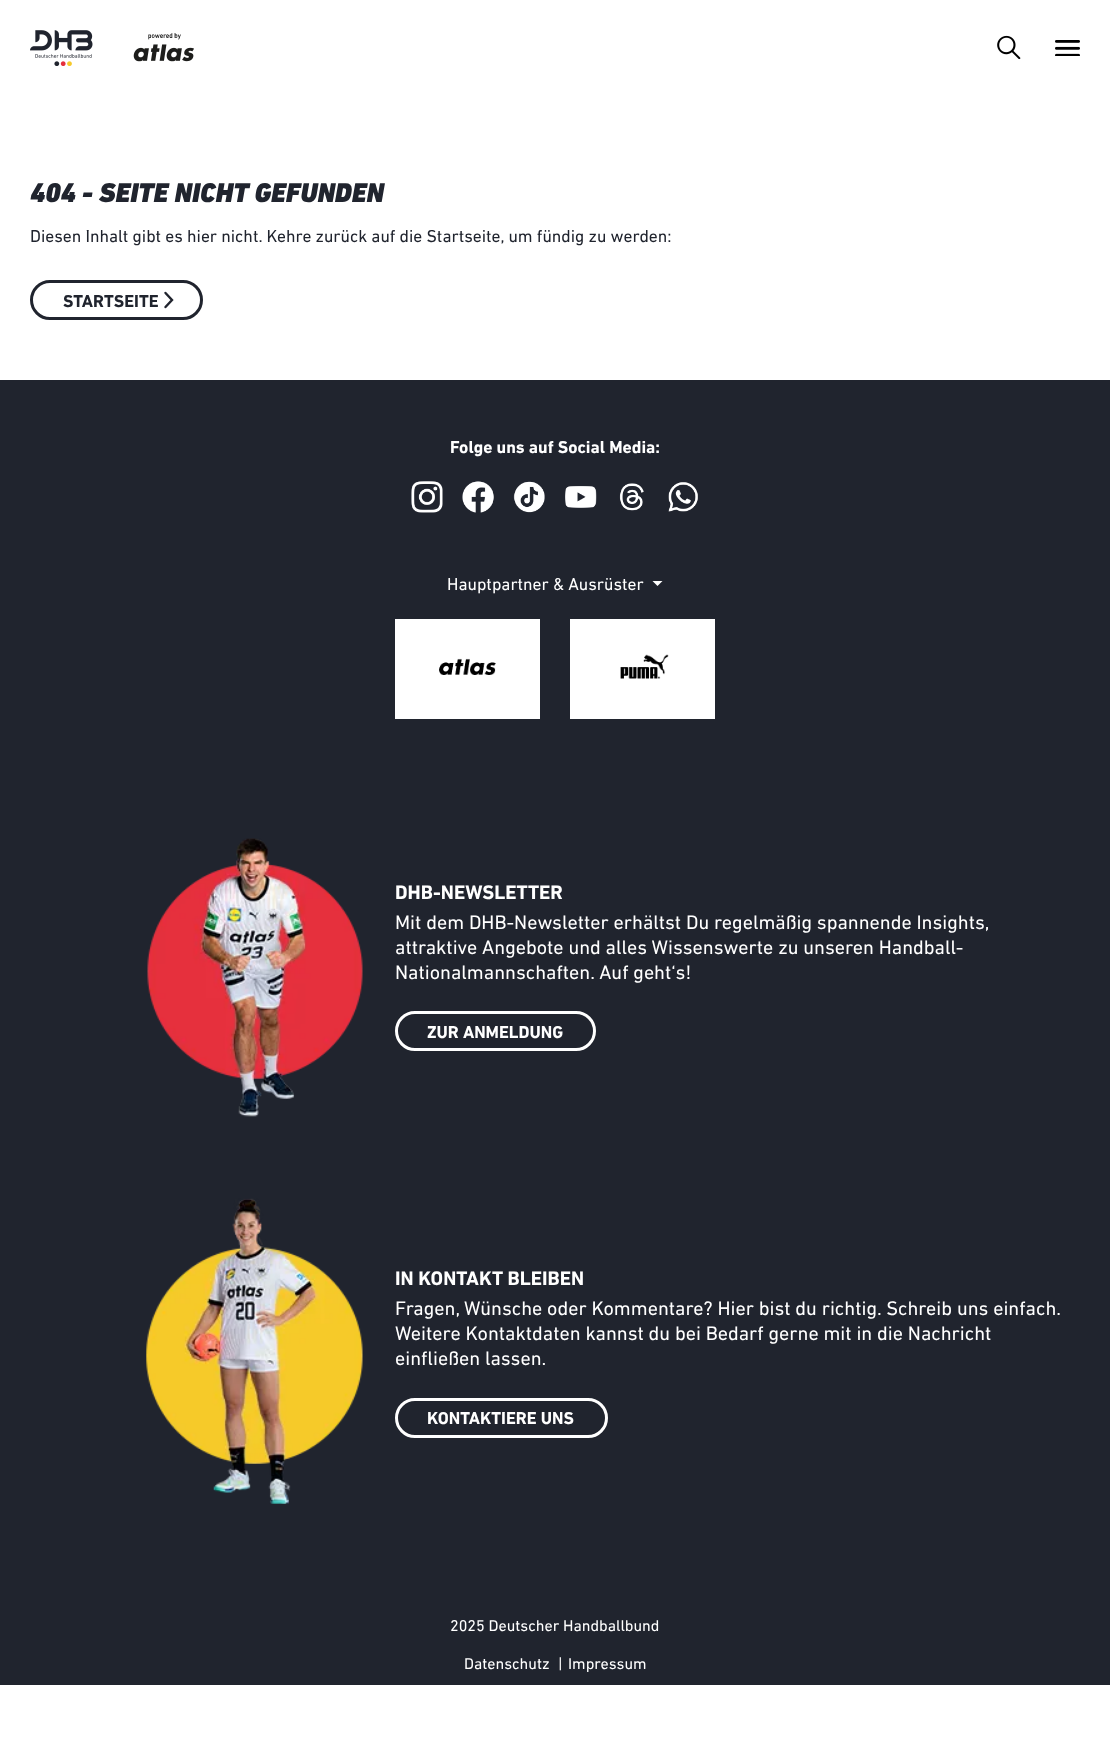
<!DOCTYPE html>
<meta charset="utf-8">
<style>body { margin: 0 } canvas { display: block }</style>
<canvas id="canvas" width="1110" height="1738"></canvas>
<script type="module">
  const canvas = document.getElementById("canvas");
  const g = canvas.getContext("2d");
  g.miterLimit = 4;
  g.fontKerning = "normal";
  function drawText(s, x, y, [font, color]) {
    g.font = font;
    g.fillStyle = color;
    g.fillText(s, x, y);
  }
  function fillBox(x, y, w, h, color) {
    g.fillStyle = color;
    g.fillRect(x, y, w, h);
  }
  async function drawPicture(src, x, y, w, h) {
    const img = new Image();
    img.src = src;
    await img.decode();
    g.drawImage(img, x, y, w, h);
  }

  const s1 = ["italic 900 27.5px DIN Next", "#20242E"];
  const s2 = ["17.5px DIN Next", "#20242E"];
  const s3 = ["bold 17.5px DIN Next", "#20242E"];
  const s4 = ["bold 17.5px DIN Next", "#FFFFFF"];
  const s5 = ["17.5px DIN Next", "#FFFFFF"];
  const s6 = ["bold 20px DIN Next", "#FFFFFF"];
  const s7 = ["20px DIN Next", "#FFFFFF"];
  const s8 = ["16px DIN Next", "#FFFFFF"];

  fillBox(0, 0, 1110, 1738, "#FFFFFF");
  await drawPicture("pic1.png", 30, 30, 63, 36);
  await drawPicture("pic2.png", 133, 33, 61, 29);
  await drawPicture("pic3.png", 997, 35, 24, 25);
  await drawPicture("pic4.png", 1055, 40, 25, 16);
  drawText("404 - SEITE NICHT GEFUNDEN", 30, 202, s1);
  drawText("Diesen Inhalt gibt es hier nicht. Kehre zurück auf die Startseite, um fündig zu werden:", 30, 242, s2);
  g.beginPath();
  g.roundRect(31.5, 281.5, 170, 37, 18.5);
  g.strokeStyle = "#20242E";
  g.lineWidth = 3;
  g.stroke();
  drawText("STARTSEITE", 63, 307, s3);
  g.beginPath();
  g.moveTo(165.5, 307);
  g.lineTo(172, 300);
  g.lineTo(165.5, 293);
  g.lineWidth = 2.4;
  g.lineCap = "round";
  g.stroke();
  fillBox(0, 380, 1110, 1305, "#20242E");
  drawText("Folge uns auf Social Media:", 450, 453, s4);
  await drawPicture("pic5.png", 411, 481, 32, 32);
  await drawPicture("pic6.png", 462, 481, 32, 32);
  await drawPicture("pic7.png", 513, 481, 32, 32);
  await drawPicture("pic8.png", 565, 486, 32, 22);
  await drawPicture("pic9.png", 619, 483, 25, 28);
  await drawPicture("pic10.png", 668, 482, 30, 30);
  drawText("Hauptpartner & Ausrüster", 447, 590, s5);
  g.beginPath();
  g.moveTo(652.5, 581);
  g.lineTo(662.5, 581);
  g.lineTo(657.5, 586);
  g.closePath();
  g.fill();
  fillBox(395, 619, 145, 100, "#FFFFFF");
  await drawPicture("pic11.png", 439, 658, 57, 17);
  fillBox(570, 619, 145, 100, "#FFFFFF");
  await drawPicture("pic12.png", 620, 654, 49, 25);
  await drawPicture("pic13.png", 147, 838, 216, 279);
  drawText("DHB-NEWSLETTER", 395, 899, s6);
  drawText("Mit dem DHB-Newsletter erhältst Du regelmäßig spannende Insights,", 395, 929, s7);
  drawText("attraktive Angebote und alles Wissenswerte zu unseren Handball-", 395, 954, s7);
  drawText("Nationalmannschaften. Auf geht‘s!", 395, 979, s7);
  g.beginPath();
  g.roundRect(396.5, 1012.5, 198, 37, 18.5);
  g.strokeStyle = "#FFFFFF";
  g.lineWidth = 3;
  g.stroke();
  drawText("ZUR ANMELDUNG", 427, 1038, s4);
  await drawPicture("pic14.png", 146, 1198, 217, 306);
  drawText("IN KONTAKT BLEIBEN", 395, 1285, s6);
  drawText("Fragen, Wünsche oder Kommentare? Hier bist du richtig. Schreib uns einfach.", 395, 1315, s7);
  drawText("Weitere Kontaktdaten kannst du bei Bedarf gerne mit in die Nachricht", 395, 1340, s7);
  drawText("einfließen lassen.", 395, 1365, s7);
  g.beginPath();
  g.roundRect(396.5, 1399.5, 210, 37, 18.5);
  g.stroke();
  drawText("KONTAKTIERE UNS", 427, 1424, s4);
  drawText("2025 Deutscher Handballbund", 450, 1631, s8);
  drawText("Datenschutz", 464, 1669, s8);
  drawText("|", 558, 1669, s8);
  drawText("Impressum", 568, 1669, s8);
</script>
